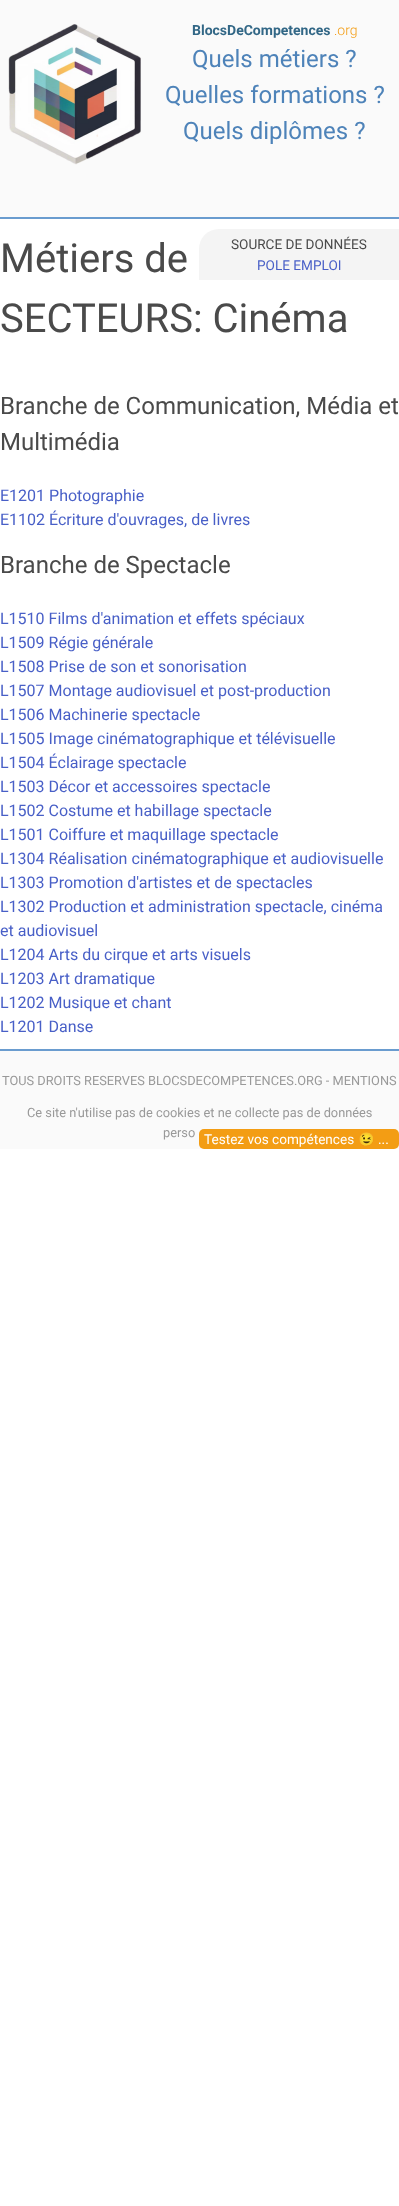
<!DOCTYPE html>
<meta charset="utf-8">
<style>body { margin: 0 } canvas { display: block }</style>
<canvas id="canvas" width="399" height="2206"></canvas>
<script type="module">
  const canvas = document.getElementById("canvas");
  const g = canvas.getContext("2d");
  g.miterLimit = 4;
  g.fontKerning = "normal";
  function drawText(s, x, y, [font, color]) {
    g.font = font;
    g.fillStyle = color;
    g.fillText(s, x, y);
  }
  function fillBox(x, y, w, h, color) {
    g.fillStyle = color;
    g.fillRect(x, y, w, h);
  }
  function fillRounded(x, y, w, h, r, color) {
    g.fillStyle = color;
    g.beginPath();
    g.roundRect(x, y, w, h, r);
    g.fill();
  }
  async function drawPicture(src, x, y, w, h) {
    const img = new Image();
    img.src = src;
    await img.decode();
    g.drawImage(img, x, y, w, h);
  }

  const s1 = ["bold 14px Roboto", "#326786"];
  const s2 = ["300 14px Roboto", "#F39C12"];
  const s3 = ["24px Roboto", "#4E83B9"];
  const s4 = ["13.6px Roboto", "#4A4A4A"];
  const s5 = ["13.6px Roboto", "#485FC7"];
  const s6 = ["40px Roboto", "#4A4A4A"];
  const s7 = ["24px Roboto", "#4A4A4A"];
  const s8 = ["16px Roboto", "#485FC7"];
  const s9 = ["12.8px Roboto", "#999999"];
  const s10 = ["13.6px Roboto", "#FFFFFF"];
  const s11 = ["13.6px Noto Color Emoji", "#FFFFFF"];

  fillBox(0, 0, 399, 2206, "#FFFFFF");
  fillBox(0, 0, 399, 1149, "#FAFAFA");
  fillBox(0, 217, 399, 2, "#6A9CCF");
  await drawPicture("pic1.png", 8, 24, 133, 141);
  drawText("BlocsDeCompetences", 192, 35, s1);
  drawText(".org", 334, 35, s2);
  drawText("Quels métiers ?", 192, 67, s3);
  drawText("Quelles formations ?", 165, 103, s3);
  drawText("Quels diplômes ?", 183, 139, s3);
  fillBox(0, 219, 399, 830, "#FFFFFF");
  g.fillStyle = "#F4F4F4";
  g.beginPath();
  g.roundRect(199, 229, 200, 51, [20, 0, 0, 0]);
  g.fill();
  drawText("SOURCE DE DONNÉES", 231, 249, s4);
  drawText("POLE EMPLOI", 257, 270, s5);
  drawText("Métiers de", 0, 272, s6);
  drawText("SECTEURS: Cinéma", 0, 332, s6);
  drawText("Branche de Communication, Média et", 0, 414, s7);
  drawText("Multimédia", 0, 450, s7);
  drawText("E1201 Photographie", 0, 501, s8);
  drawText("E1102 Écriture d'ouvrages, de livres", 0, 525, s8);
  drawText("Branche de Spectacle", 0, 573, s7);
  drawText("L1510 Films d'animation et effets spéciaux", 0, 624, s8);
  drawText("L1509 Régie générale", 0, 648, s8);
  drawText("L1508 Prise de son et sonorisation", 0, 672, s8);
  drawText("L1507 Montage audiovisuel et post-production", 0, 696, s8);
  drawText("L1506 Machinerie spectacle", 0, 720, s8);
  drawText("L1505 Image cinématographique et télévisuelle", 0, 744, s8);
  drawText("L1504 Éclairage spectacle", 0, 768, s8);
  drawText("L1503 Décor et accessoires spectacle", 0, 792, s8);
  drawText("L1502 Costume et habillage spectacle", 0, 816, s8);
  drawText("L1501 Coiffure et maquillage spectacle", 0, 840, s8);
  drawText("L1304 Réalisation cinématographique et audiovisuelle", 0, 864, s8);
  drawText("L1303 Promotion d'artistes et de spectacles", 0, 888, s8);
  drawText("L1302 Production et administration spectacle, cinéma", 0, 912, s8);
  drawText("et audiovisuel", 0, 936, s8);
  drawText("L1204 Arts du cirque et arts visuels", 0, 960, s8);
  drawText("L1203 Art dramatique", 0, 984, s8);
  drawText("L1202 Musique et chant", 0, 1008, s8);
  drawText("L1201 Danse", 0, 1032, s8);
  fillBox(0, 1049, 399, 2, "#6A9CCF");
  drawText("TOUS DROITS RESERVES BLOCSDECOMPETENCES.ORG - MENTIONS", 2, 1085, s9);
  drawText("Ce site n'utilise pas de cookies et ne collecte pas de données", 27, 1117, s9);
  drawText("perso", 163, 1137, s9);
  fillRounded(199, 1129, 200, 20, 5, "#F39D14");
  drawText("Testez vos compétences", 204, 1144, s10);
  drawText("😉", 358, 1144, s11);
  drawText("...", 378, 1144, s10);
</script>
